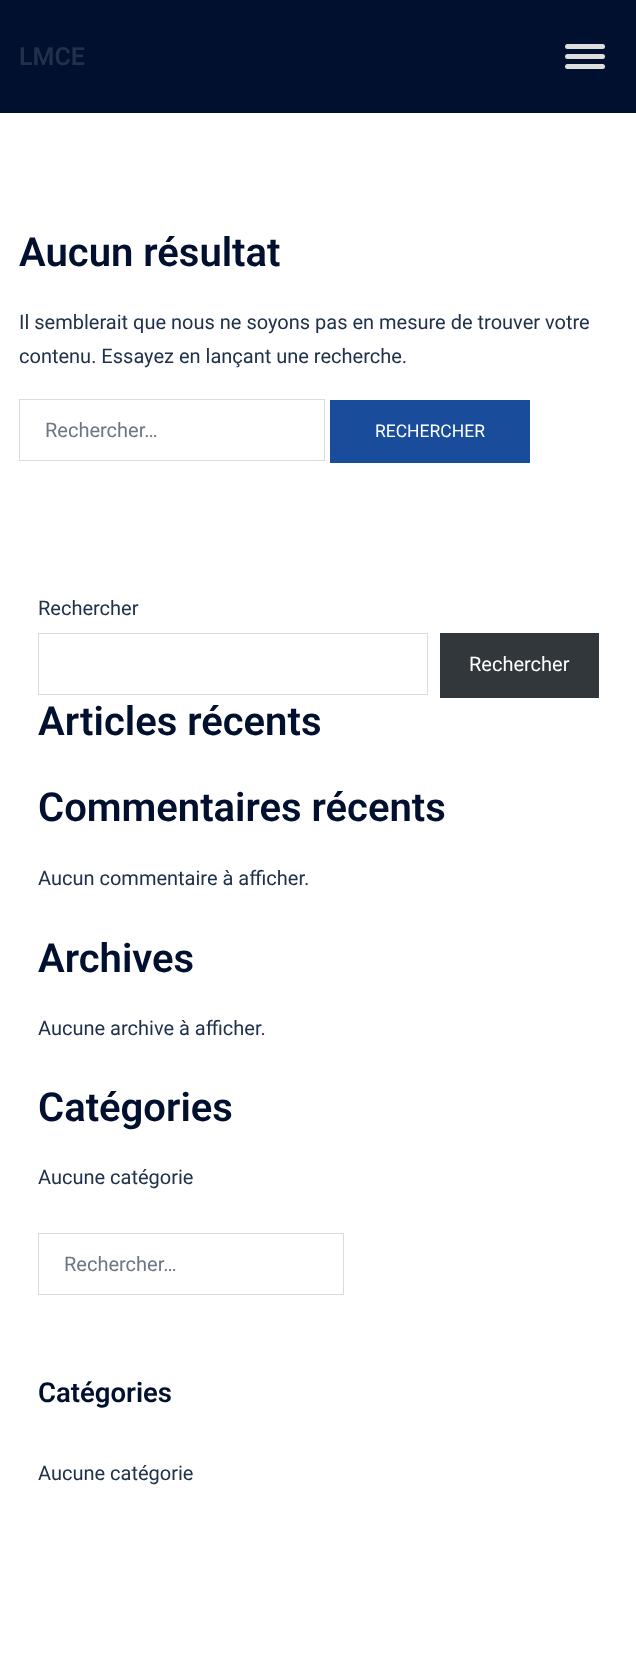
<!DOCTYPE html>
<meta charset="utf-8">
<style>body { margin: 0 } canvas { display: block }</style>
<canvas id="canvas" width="636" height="1654"></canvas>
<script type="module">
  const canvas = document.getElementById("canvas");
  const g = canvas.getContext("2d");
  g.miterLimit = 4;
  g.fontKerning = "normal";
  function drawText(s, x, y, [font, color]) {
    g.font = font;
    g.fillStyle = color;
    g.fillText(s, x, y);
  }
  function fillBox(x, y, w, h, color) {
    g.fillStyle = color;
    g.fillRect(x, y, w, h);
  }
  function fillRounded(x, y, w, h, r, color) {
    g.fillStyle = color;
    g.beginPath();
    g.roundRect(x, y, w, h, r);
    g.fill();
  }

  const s1 = ["600 25px Roboto", "#20314B"];
  const s2 = ["600 40px Roboto", "#00102E"];
  const s3 = ["20px Roboto", "#20314B"];
  const s4 = ["20px Roboto", "#6D7685"];
  const s5 = ["17.5px Roboto", "#FFFFFF"];
  const s6 = ["20px Roboto", "#FFFFFF"];
  const s7 = ["600 27.5px Roboto", "#00102E"];

  fillBox(0, 0, 636, 1654, "#FFFFFF");
  fillBox(0, 0, 636, 113, "#00102E");
  drawText("LMCE", 19, 65, s1);
  fillRounded(565, 44, 40, 5, 2.5, "#DDDDDD");
  fillRounded(565, 54, 40, 5, 2.5, "#DDDDDD");
  fillRounded(565, 64, 40, 5, 2.5, "#DDDDDD");
  drawText("Aucun résultat", 19, 266, s2);
  drawText("Il semblerait que nous ne soyons pas en mesure de trouver votre", 19, 329, s3);
  drawText("contenu. Essayez en lançant une recherche.", 19, 363, s3);
  g.strokeStyle = "#DBDBDB";
  g.strokeRect(19.5, 399.5, 305, 61);
  drawText("Rechercher…", 45, 437, s4);
  fillBox(330, 400, 200, 63, "#194C9B");
  drawText("RECHERCHER", 375, 437, s5);
  drawText("Rechercher", 38, 615, s3);
  g.strokeRect(38.5, 633.5, 389, 61);
  fillBox(440, 633, 159, 65, "#32373C");
  drawText("Rechercher", 469, 671, s6);
  drawText("Articles récents", 38, 735, s2);
  drawText("Commentaires récents", 38, 821, s2);
  drawText("Aucun commentaire à afficher.", 38, 885, s3);
  drawText("Archives", 38, 972, s2);
  drawText("Aucune archive à afficher.", 38, 1035, s3);
  drawText("Catégories", 38, 1121, s2);
  drawText("Aucune catégorie", 38, 1184, s3);
  g.strokeRect(38.5, 1233.5, 305, 61);
  drawText("Rechercher…", 64, 1271, s4);
  drawText("Catégories", 38, 1402, s7);
  drawText("Aucune catégorie", 38, 1480, s3);
</script>
